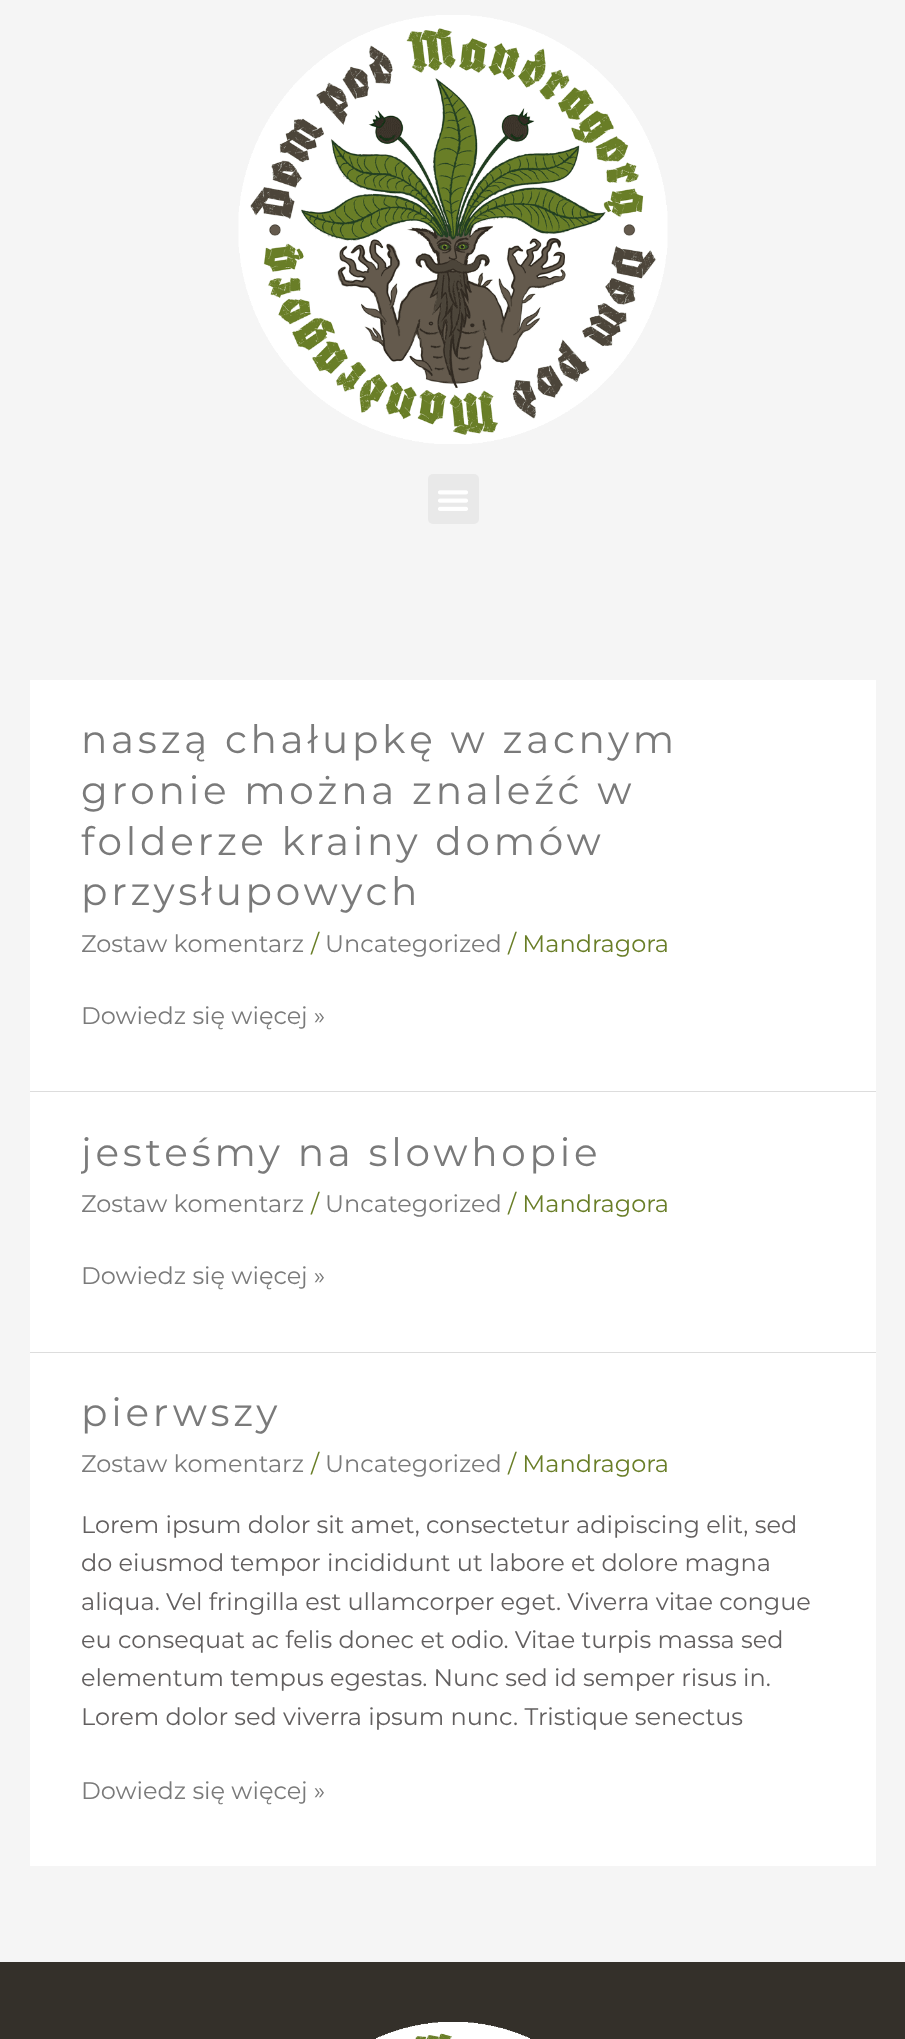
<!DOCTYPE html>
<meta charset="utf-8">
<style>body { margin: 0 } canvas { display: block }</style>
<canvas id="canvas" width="905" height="2039"></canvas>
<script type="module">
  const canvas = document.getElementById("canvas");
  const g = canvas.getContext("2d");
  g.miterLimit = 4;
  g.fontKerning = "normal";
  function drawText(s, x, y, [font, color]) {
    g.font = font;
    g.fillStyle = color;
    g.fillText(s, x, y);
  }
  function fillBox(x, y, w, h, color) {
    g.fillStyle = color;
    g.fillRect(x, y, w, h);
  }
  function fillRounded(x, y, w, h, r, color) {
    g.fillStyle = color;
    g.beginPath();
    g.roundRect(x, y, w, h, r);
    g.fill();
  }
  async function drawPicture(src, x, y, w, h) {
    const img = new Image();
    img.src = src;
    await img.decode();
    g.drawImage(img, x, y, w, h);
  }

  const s1 = ["39px Montserrat", "#7A7A7A"];
  const s2 = ["24px Montserrat", "#7A7A7A"];
  const s3 = ["24px Montserrat", "#697E27"];
  const s4 = ["24px Montserrat", "#625F5F"];

  fillBox(0, 0, 905, 2039, "#F5F5F5");
  await drawPicture("pic1.png", 238, 15, 430, 429);
  fillRounded(428, 474, 51, 50, 5, "#E9E9E9");
  await drawPicture("pic2.png", 438, 490, 30, 21);
  fillBox(30, 680, 846, 411, "#FFFFFF");
  fillBox(30, 1091, 846, 1, "#DDDDDD");
  g.letterSpacing = "3.75px";
  drawText("naszą chałupkę w zacnym", 81, 753, s1);
  drawText("gronie można znaleźć w", 81, 804, s1);
  drawText("folderze krainy domów", 81, 855, s1);
  drawText("przysłupowych", 81, 905, s1);
  g.letterSpacing = "0px";
  drawText("Zostaw komentarz", 81, 952, s2);
  drawText("/", 311, 952, s3);
  drawText("Uncategorized", 325, 952, s2);
  drawText("/ Mandragora", 508, 952, s3);
  drawText("Dowiedz się więcej »", 81, 1024, s2);
  fillBox(30, 1092, 846, 260, "#FFFFFF");
  fillBox(30, 1352, 846, 1, "#DDDDDD");
  g.save();
  g.beginPath();
  g.rect(81, 1128, 744, 188);
  g.clip();
  g.letterSpacing = "3.75px";
  drawText("jesteśmy na slowhopie", 81, 1166, s1);
  g.restore();
  drawText("Zostaw komentarz", 81, 1212, s2);
  drawText("/", 311, 1212, s3);
  drawText("Uncategorized", 325, 1212, s2);
  drawText("/ Mandragora", 508, 1212, s3);
  drawText("Dowiedz się więcej »", 81, 1284, s2);
  fillBox(30, 1353, 846, 513, "#FFFFFF");
  g.letterSpacing = "3.75px";
  drawText("pierwszy", 81, 1426, s1);
  g.letterSpacing = "0px";
  drawText("Zostaw komentarz", 81, 1472, s2);
  drawText("/", 311, 1472, s3);
  drawText("Uncategorized", 325, 1472, s2);
  drawText("/ Mandragora", 508, 1472, s3);
  drawText("Lorem ipsum dolor sit amet, consectetur adipiscing elit, sed", 81, 1533, s4);
  drawText("do eiusmod tempor incididunt ut labore et dolore magna", 81, 1571, s4);
  drawText("aliqua. Vel fringilla est ullamcorper eget. Viverra vitae congue", 81, 1610, s4);
  drawText("eu consequat ac felis donec et odio. Vitae turpis massa sed", 81, 1648, s4);
  drawText("elementum tempus egestas. Nunc sed id semper risus in.", 81, 1686, s4);
  drawText("Lorem dolor sed viverra ipsum nunc. Tristique senectus", 81, 1725, s4);
  drawText("Dowiedz się więcej »", 81, 1799, s2);
  fillBox(0, 1962, 905, 77, "#34302A");
  await drawPicture("pic3.png", 376, 2022, 154, 17);
</script>
